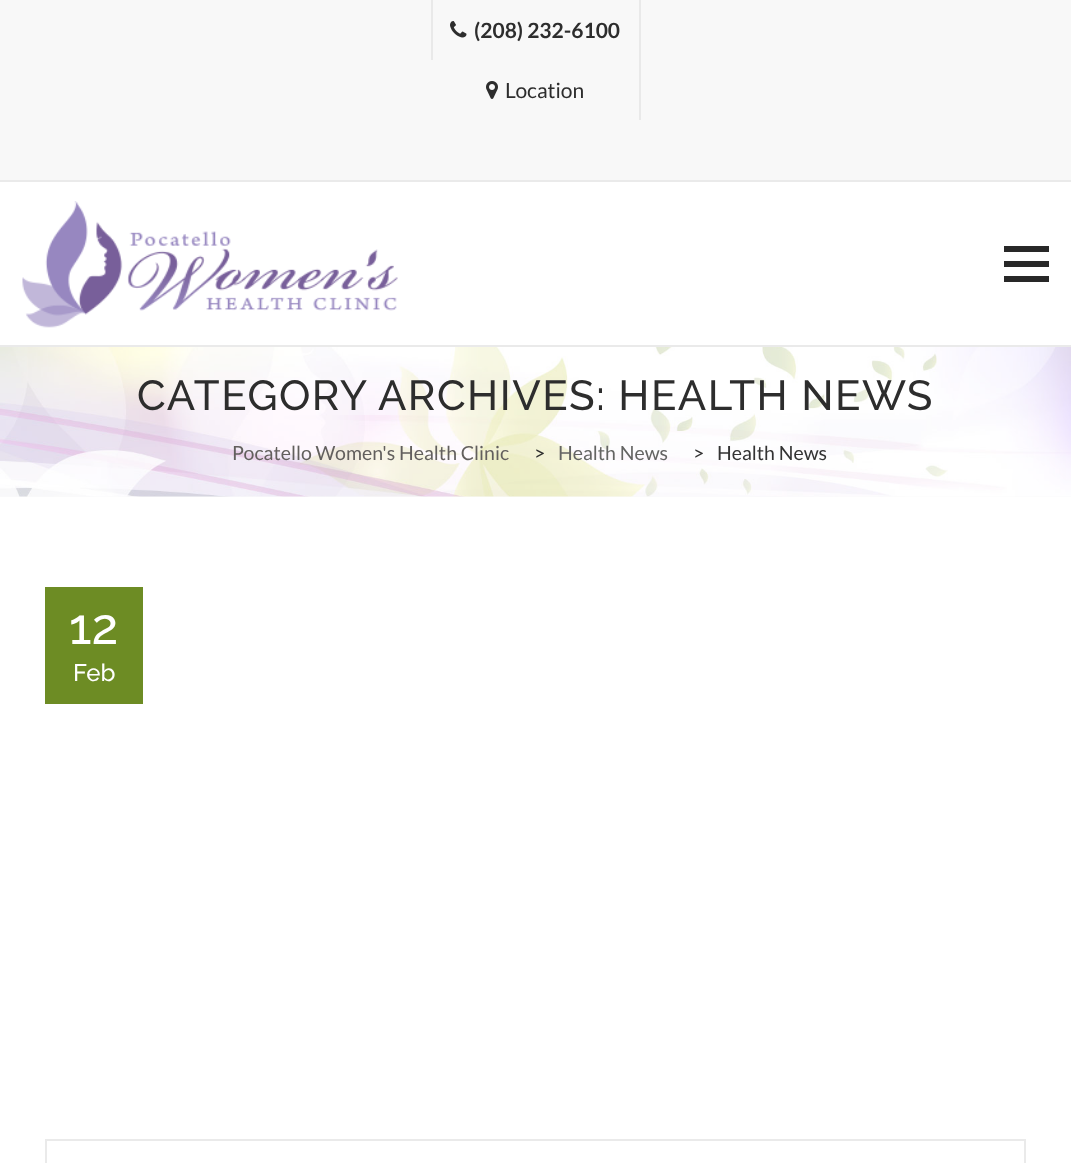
<!DOCTYPE html>
<meta charset="utf-8">
<style>body { margin: 0 } canvas { display: block }</style>
<canvas id="canvas" width="1071" height="1163"></canvas>
<script type="module">
  const canvas = document.getElementById("canvas");
  const g = canvas.getContext("2d");
  g.miterLimit = 4;
  g.fontKerning = "normal";
  function drawText(s, x, y, [font, color]) {
    g.font = font;
    g.fillStyle = color;
    g.fillText(s, x, y);
  }
  function fillBox(x, y, w, h, color) {
    g.fillStyle = color;
    g.fillRect(x, y, w, h);
  }
  async function drawPicture(src, x, y, w, h) {
    const img = new Image();
    img.src = src;
    await img.decode();
    g.drawImage(img, x, y, w, h);
  }

  const s1 = ["bold 21px Lato", "#2D2D2D"];
  const s2 = ["21px Lato", "#2D2D2D"];
  const s3 = ["500 42px Raleway", "#2D2D2D"];
  const s4 = ["19.5px Lato", "#625F5D"];
  const s5 = ["19.5px Lato", "#2D2D2D"];
  const s6 = ["19.5px Lato", "#646463"];
  const s7 = ["19.5px Lato", "#333333"];
  const s8 = ["500 50px Raleway", "#FFFFFF"];
  const s9 = ["500 24px Raleway", "#FFFFFF"];

  fillBox(0, 0, 1071, 1163, "#F8F8F8");
  fillBox(0, 496, 1071, 1, "#FBFBFB");
  fillBox(0, 180, 1071, 2, "#EAEAEA");
  fillBox(431, 0, 2, 60, "#E9E9E9");
  await drawPicture("pic1.png", 450, 21, 17, 17);
  drawText("(208) 232-6100", 474, 38, s1);
  fillBox(639, 0, 2, 120, "#E9E9E9");
  await drawPicture("pic2.png", 486, 81, 12, 18);
  drawText("Location", 505, 98, s2);
  fillBox(0, 182, 1071, 163, "#FFFFFF");
  await drawPicture("pic3.png", 22, 201, 376, 127);
  fillBox(1004, 261, 45, 6, "#282828");
  fillBox(1004, 246, 45, 6, "#282828");
  fillBox(1004, 276, 45, 6, "#282828");
  fillBox(0, 345, 1071, 2, "#EAEAEA");
  await drawPicture("pic4.png", 0, 347, 1071, 150);
  g.letterSpacing = "1.5px";
  drawText("CATEGORY ARCHIVES: HEALTH NEWS", 137, 410, s3);
  g.letterSpacing = "0px";
  drawText("Pocatello Women's Health Clinic", 232, 460, s4);
  drawText(">", 534, 460, s5);
  drawText("Health News", 558, 460, s6);
  drawText(">", 693, 460, s7);
  drawText("Health News", 717, 460, s7);
  fillBox(0, 497, 1071, 666, "#FFFFFF");
  fillBox(45, 587, 98, 117, "#6D8C24");
  drawText("12", 69, 644, s8);
  drawText("Feb", 73, 681, s9);
  g.strokeStyle = "#EAEAEA";
  g.lineWidth = 2;
  g.strokeRect(46, 1140, 979, 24);
</script>
